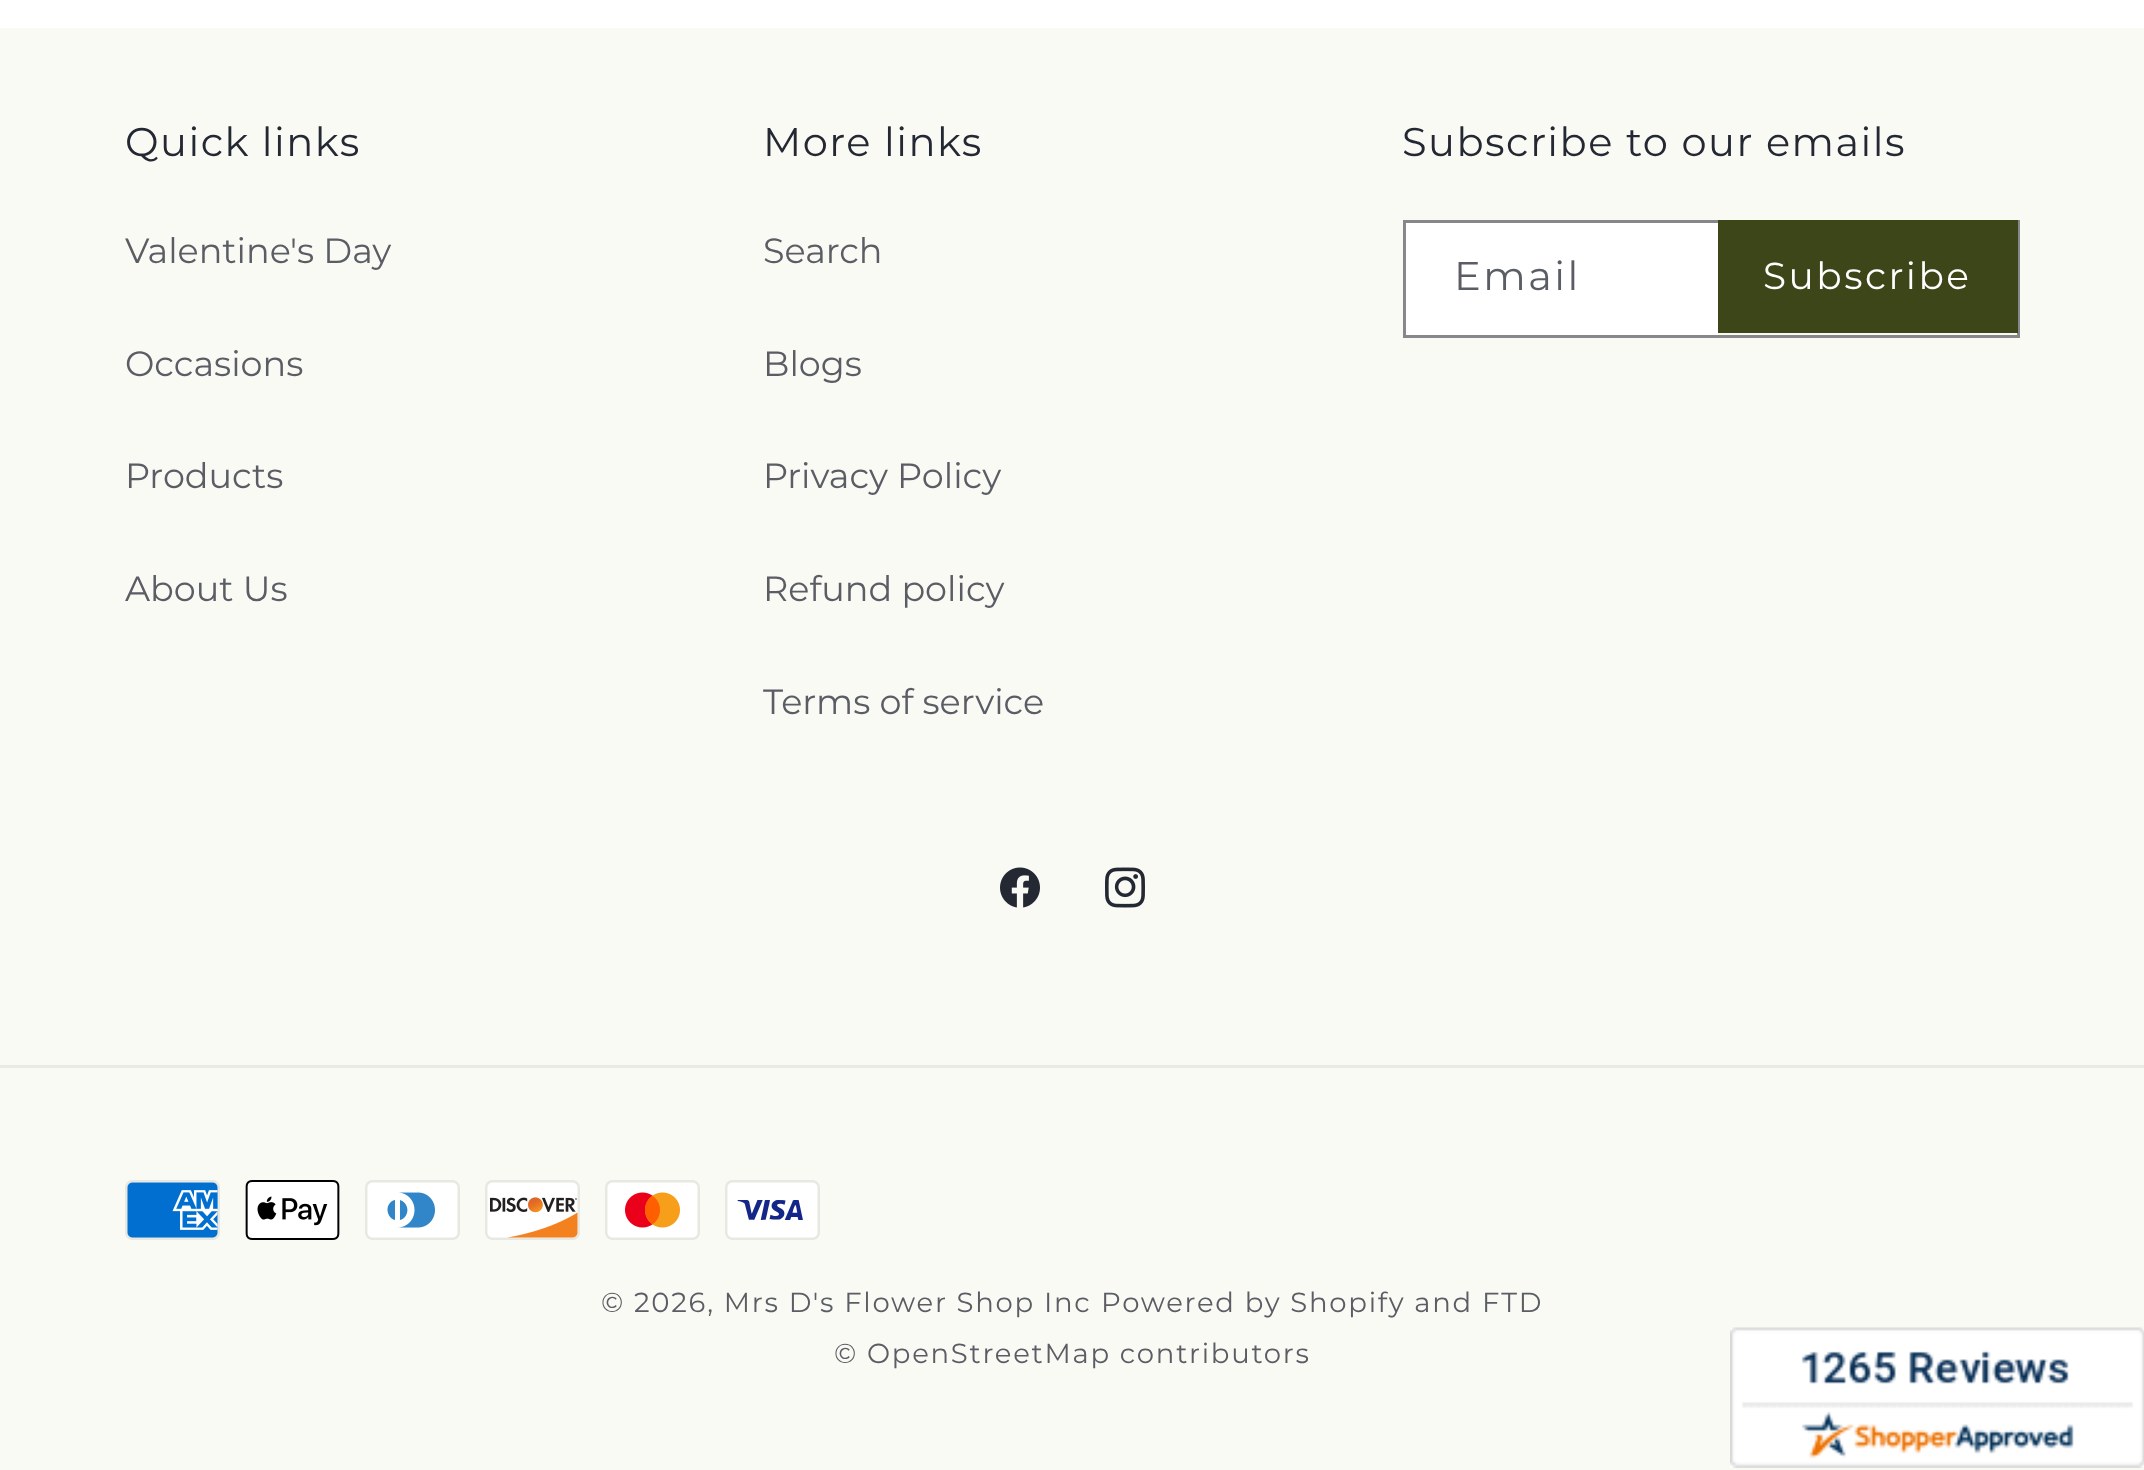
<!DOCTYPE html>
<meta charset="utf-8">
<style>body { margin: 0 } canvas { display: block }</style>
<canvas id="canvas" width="2144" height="1470"></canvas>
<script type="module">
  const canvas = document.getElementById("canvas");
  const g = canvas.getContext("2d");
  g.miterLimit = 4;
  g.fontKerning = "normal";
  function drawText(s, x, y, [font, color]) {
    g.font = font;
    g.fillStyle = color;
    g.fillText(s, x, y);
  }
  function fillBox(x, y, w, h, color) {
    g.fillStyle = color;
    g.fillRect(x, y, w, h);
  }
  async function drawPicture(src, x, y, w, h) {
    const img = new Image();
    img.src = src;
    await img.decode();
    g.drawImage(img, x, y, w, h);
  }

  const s1 = ["40px Montserrat", "#242833"];
  const s2 = ["35px Montserrat", "#5A5D64"];
  const s3 = ["40px Montserrat", "#5A5D64"];
  const s4 = ["37.5px Montserrat", "#FFFFFF"];
  const s5 = ["27.5px Montserrat", "#5A5D64"];

  fillBox(0, 0, 2144, 1470, "#FFFFFF");
  fillBox(0, 28, 2144, 1442, "#FAFAF5");
  g.letterSpacing = "1.5px";
  drawText("Quick links", 125, 156, s1);
  g.letterSpacing = "0px";
  drawText("Valentine's Day", 125, 263, s2);
  drawText("Occasions", 125, 376, s2);
  drawText("Products", 125, 488, s2);
  drawText("About Us", 125, 601, s2);
  g.letterSpacing = "1.5px";
  drawText("More links", 763, 156, s1);
  g.letterSpacing = "0px";
  drawText("Search", 763, 263, s2);
  drawText("Blogs", 763, 376, s2);
  drawText("Privacy Policy", 763, 488, s2);
  drawText("Refund policy", 763, 601, s2);
  drawText("Terms of service", 763, 714, s2);
  g.letterSpacing = "1.5px";
  drawText("Subscribe to our emails", 1402, 156, s1);
  fillBox(1405, 223, 313, 112, "#FFFFFF");
  g.strokeStyle = "rgba(36, 40, 51, 0.55)";
  g.lineWidth = 3;
  g.strokeRect(1404.5, 221.5, 614, 115);
  g.letterSpacing = "2.5px";
  drawText("Email", 1454, 290, s3);
  fillBox(1718, 220, 300, 113, "#3C4618");
  drawText("Subscribe", 1763, 289, s4);
  await drawPicture("pic1.png", 1000, 867, 40, 41);
  await drawPicture("pic2.png", 1105, 867, 40, 41);
  fillBox(0, 1065, 2144, 3, "#E9E9E5");
  await drawPicture("pic3.png", 125, 1180, 95, 60);
  await drawPicture("pic4.png", 245, 1180, 95, 60);
  await drawPicture("pic5.png", 365, 1180, 95, 60);
  await drawPicture("pic6.png", 485, 1180, 95, 60);
  await drawPicture("pic7.png", 605, 1180, 95, 60);
  await drawPicture("pic8.png", 725, 1180, 95, 60);
  g.letterSpacing = "1.75px";
  drawText("© 2026, Mrs D's Flower Shop Inc", 601, 1312, s5);
  drawText("Powered by Shopify and FTD", 1101, 1312, s5);
  drawText("© OpenStreetMap contributors", 834, 1363, s5);
  await drawPicture("pic9.png", 1730, 1327, 414, 141);
</script>
